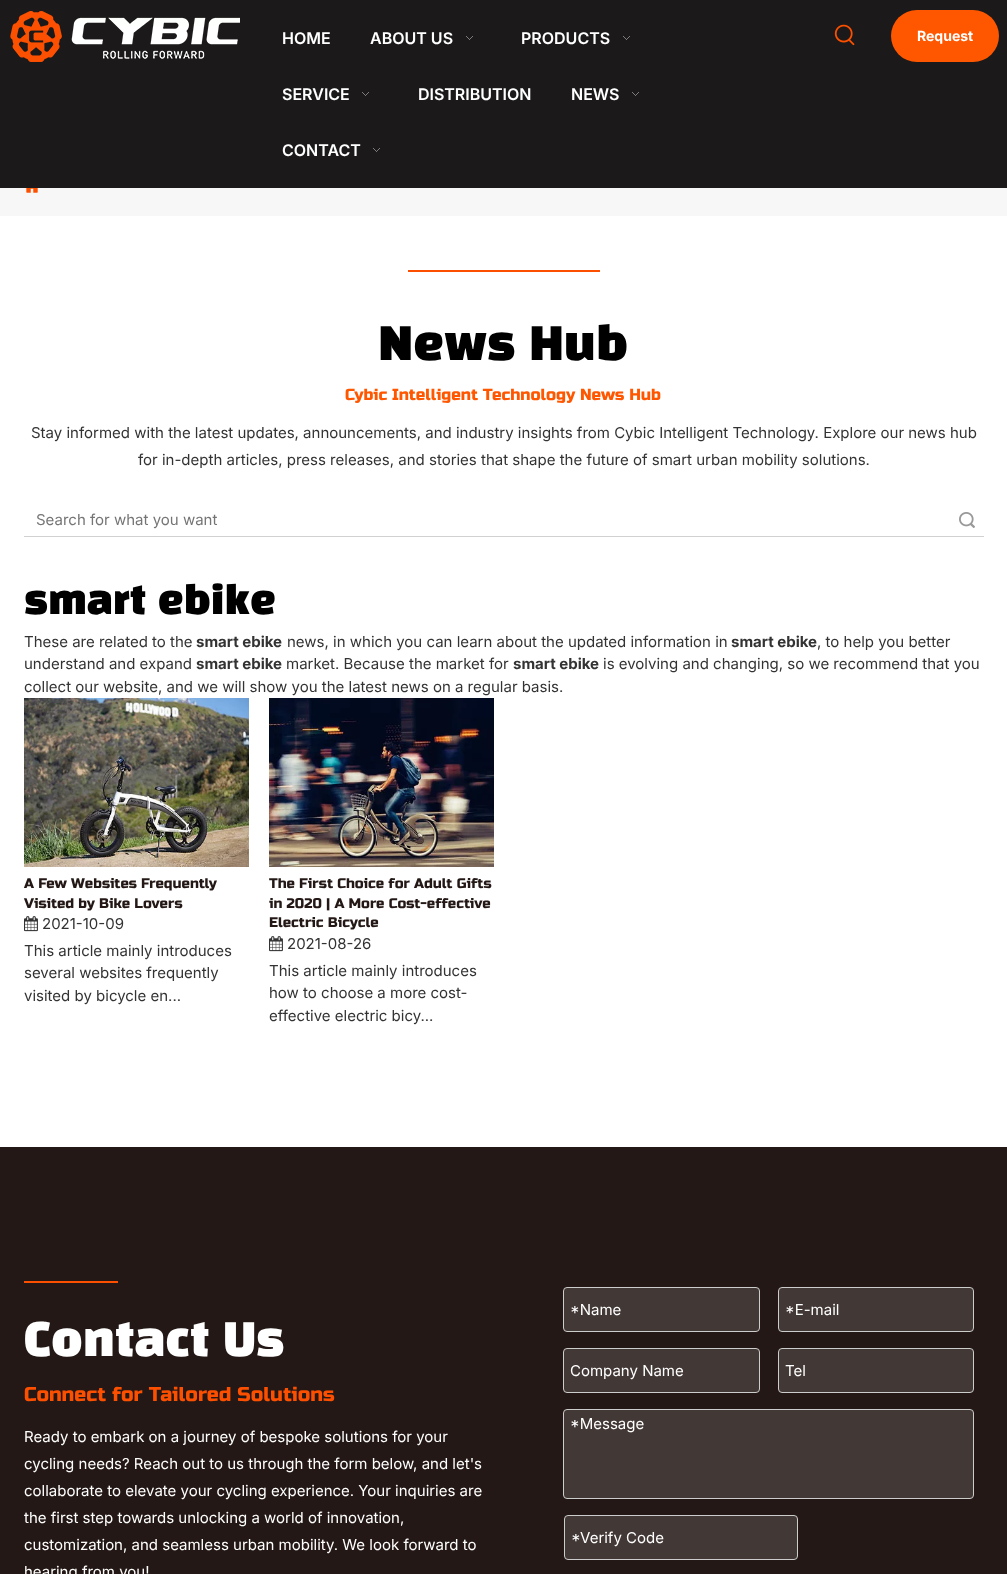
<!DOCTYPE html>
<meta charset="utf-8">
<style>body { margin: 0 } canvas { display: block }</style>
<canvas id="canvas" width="1007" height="1574"></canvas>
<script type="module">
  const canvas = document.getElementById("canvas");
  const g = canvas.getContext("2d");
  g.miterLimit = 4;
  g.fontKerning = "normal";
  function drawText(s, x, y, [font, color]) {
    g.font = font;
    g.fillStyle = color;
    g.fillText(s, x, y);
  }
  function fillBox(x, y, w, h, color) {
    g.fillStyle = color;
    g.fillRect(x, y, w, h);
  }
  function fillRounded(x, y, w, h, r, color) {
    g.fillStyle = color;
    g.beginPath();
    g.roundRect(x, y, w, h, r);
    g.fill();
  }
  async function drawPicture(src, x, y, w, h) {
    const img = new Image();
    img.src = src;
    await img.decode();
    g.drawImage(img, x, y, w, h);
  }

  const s1 = ["600 16px Inter", "#FFFFFF"];
  const s2 = ["bold 14px Inter", "#FFFFFF"];
  const s3 = ["900 45px Black Han Sans", "#000000"];
  const s4 = ["16px Russo One", "#FF5700"];
  const s5 = ["15px Inter", "#333333"];
  const s6 = ["15px Inter", "#757575"];
  const s7 = ["900 38px Black Han Sans", "#000000"];
  const s8 = ["bold 15px Inter", "#333333"];
  const s9 = ["14px Russo One", "#231815"];
  const s10 = ["900 45px Black Han Sans", "#FFFFFF"];
  const s11 = ["20px Russo One", "#FC5000"];
  const s12 = ["15px Inter", "#FFFFFF"];

  fillBox(0, 0, 1007, 1574, "#FFFFFF");
  fillBox(0, 0, 1007, 188, "#1B1919");
  await drawPicture("pic1.png", 10, 11, 230, 51);
  drawText("HOME", 282, 44, s1);
  drawText("ABOUT US", 370, 44, s1);
  await drawPicture("pic2.png", 466, 36, 7, 4);
  drawText("PRODUCTS", 521, 44, s1);
  await drawPicture("pic2.png", 623, 36, 7, 4);
  drawText("SERVICE", 282, 100, s1);
  await drawPicture("pic2.png", 362, 92, 7, 4);
  drawText("DISTRIBUTION", 418, 100, s1);
  drawText("NEWS", 571, 100, s1);
  await drawPicture("pic2.png", 632, 92, 7, 4);
  drawText("CONTACT", 282, 156, s1);
  await drawPicture("pic2.png", 373, 148, 7, 4);
  await drawPicture("pic3.png", 834, 24, 21, 22);
  fillRounded(891, 10, 108, 52, 26, "#FF5700");
  drawText("Request", 917, 41, s2);
  fillBox(0, 188, 1007, 28, "#F7F7F7");
  await drawPicture("pic4.png", 26, 188, 12, 5);
  fillBox(408, 270, 192, 2, "#FC5000");
  drawText("News Hub", 378, 360, s3);
  drawText("Cybic Intelligent Technology News Hub", 345, 400, s4);
  drawText("Stay informed with the latest updates, announcements, and industry insights from Cybic Intelligent Technology. Explore our news hub", 31, 438, s5);
  drawText("for in-depth articles, press releases, and stories that shape the future of smart urban mobility solutions.", 138, 465, s5);
  fillBox(24, 536, 960, 1, "#D1D1D1");
  drawText("Search for what you want", 36, 525, s6);
  await drawPicture("pic5.png", 959, 512, 16, 16);
  drawText("smart ebike", 24, 614, s7);
  drawText("These are related to the", 24, 647, s5);
  drawText("smart ebike", 196, 647, s8);
  drawText("news, in which you can learn about the updated information in", 287, 647, s5);
  drawText("smart ebike", 731, 647, s8);
  drawText(", to help you better", 817, 647, s5);
  drawText("understand and expand", 24, 669, s5);
  drawText("smart ebike", 196, 669, s8);
  drawText("market. Because the market for", 286, 669, s5);
  drawText("smart ebike", 513, 669, s8);
  drawText("is evolving and changing, so we recommend that you", 603, 669, s5);
  drawText("collect our website, and we will show you the latest news on a regular basis.", 24, 692, s5);
  await drawPicture("pic6.png", 24, 698, 225, 169);
  drawText("A Few Websites Frequently", 24, 888, s9);
  drawText("Visited by Bike Lovers", 24, 908, s9);
  await drawPicture("pic7.png", 24, 916, 14, 16);
  drawText("2021-10-09", 42, 929, s5);
  drawText("This article mainly introduces", 24, 956, s5);
  drawText("several websites frequently", 24, 978, s5);
  drawText("visited by bicycle en...", 24, 1001, s5);
  await drawPicture("pic8.png", 269, 698, 225, 169);
  drawText("The First Choice for Adult Gifts", 269, 888, s9);
  drawText("in 2020 | A More Cost-effective", 269, 908, s9);
  drawText("Electric Bicycle", 269, 927, s9);
  await drawPicture("pic7.png", 269, 936, 14, 16);
  drawText("2021-08-26", 287, 949, s5);
  drawText("This article mainly introduces", 269, 976, s5);
  drawText("how to choose a more cost-", 269, 998, s5);
  drawText("effective electric bicy...", 269, 1021, s5);
  fillBox(0, 1147, 1007, 427, "#231815");
  fillBox(24, 1281, 94, 2, "#FC5000");
  drawText("Contact Us", 24, 1356, s10);
  drawText("Connect for Tailored Solutions", 24, 1401, s11);
  drawText("Ready to embark on a journey of bespoke solutions for your", 24, 1442, s12);
  drawText("cycling needs? Reach out to us through the form below, and let's", 24, 1469, s12);
  drawText("collaborate to elevate your cycling experience. Your inquiries are", 24, 1496, s12);
  drawText("the first step towards unlocking a world of innovation,", 24, 1523, s12);
  drawText("customization, and seamless urban mobility. We look forward to", 24, 1550, s12);
  drawText("hearing from you!", 24, 1577, s12);
  g.fillStyle = "#423836";
  g.beginPath();
  g.roundRect(563.5, 1287.5, 196, 44, 3.5);
  g.fill();
  g.strokeStyle = "#CCCCCC";
  g.stroke();
  drawText("*Name", 570, 1315, s12);
  g.fillStyle = "#423836";
  g.beginPath();
  g.roundRect(778.5, 1287.5, 195, 44, 3.5);
  g.fill();
  g.stroke();
  drawText("*E-mail", 785, 1315, s12);
  g.fillStyle = "#423836";
  g.beginPath();
  g.roundRect(563.5, 1348.5, 196, 44, 3.5);
  g.fill();
  g.stroke();
  drawText("Company Name", 570, 1376, s12);
  g.fillStyle = "#423836";
  g.beginPath();
  g.roundRect(778.5, 1348.5, 195, 44, 3.5);
  g.fill();
  g.stroke();
  drawText("Tel", 785, 1376, s12);
  g.fillStyle = "#423836";
  g.beginPath();
  g.roundRect(563.5, 1409.5, 410, 89, 3.5);
  g.fill();
  g.stroke();
  drawText("*Message", 570, 1429, s12);
  g.fillStyle = "#423836";
  g.beginPath();
  g.roundRect(564.5, 1515.5, 233, 44, 3.5);
  g.fill();
  g.stroke();
  drawText("*Verify Code", 571, 1543, s12);
</script>
